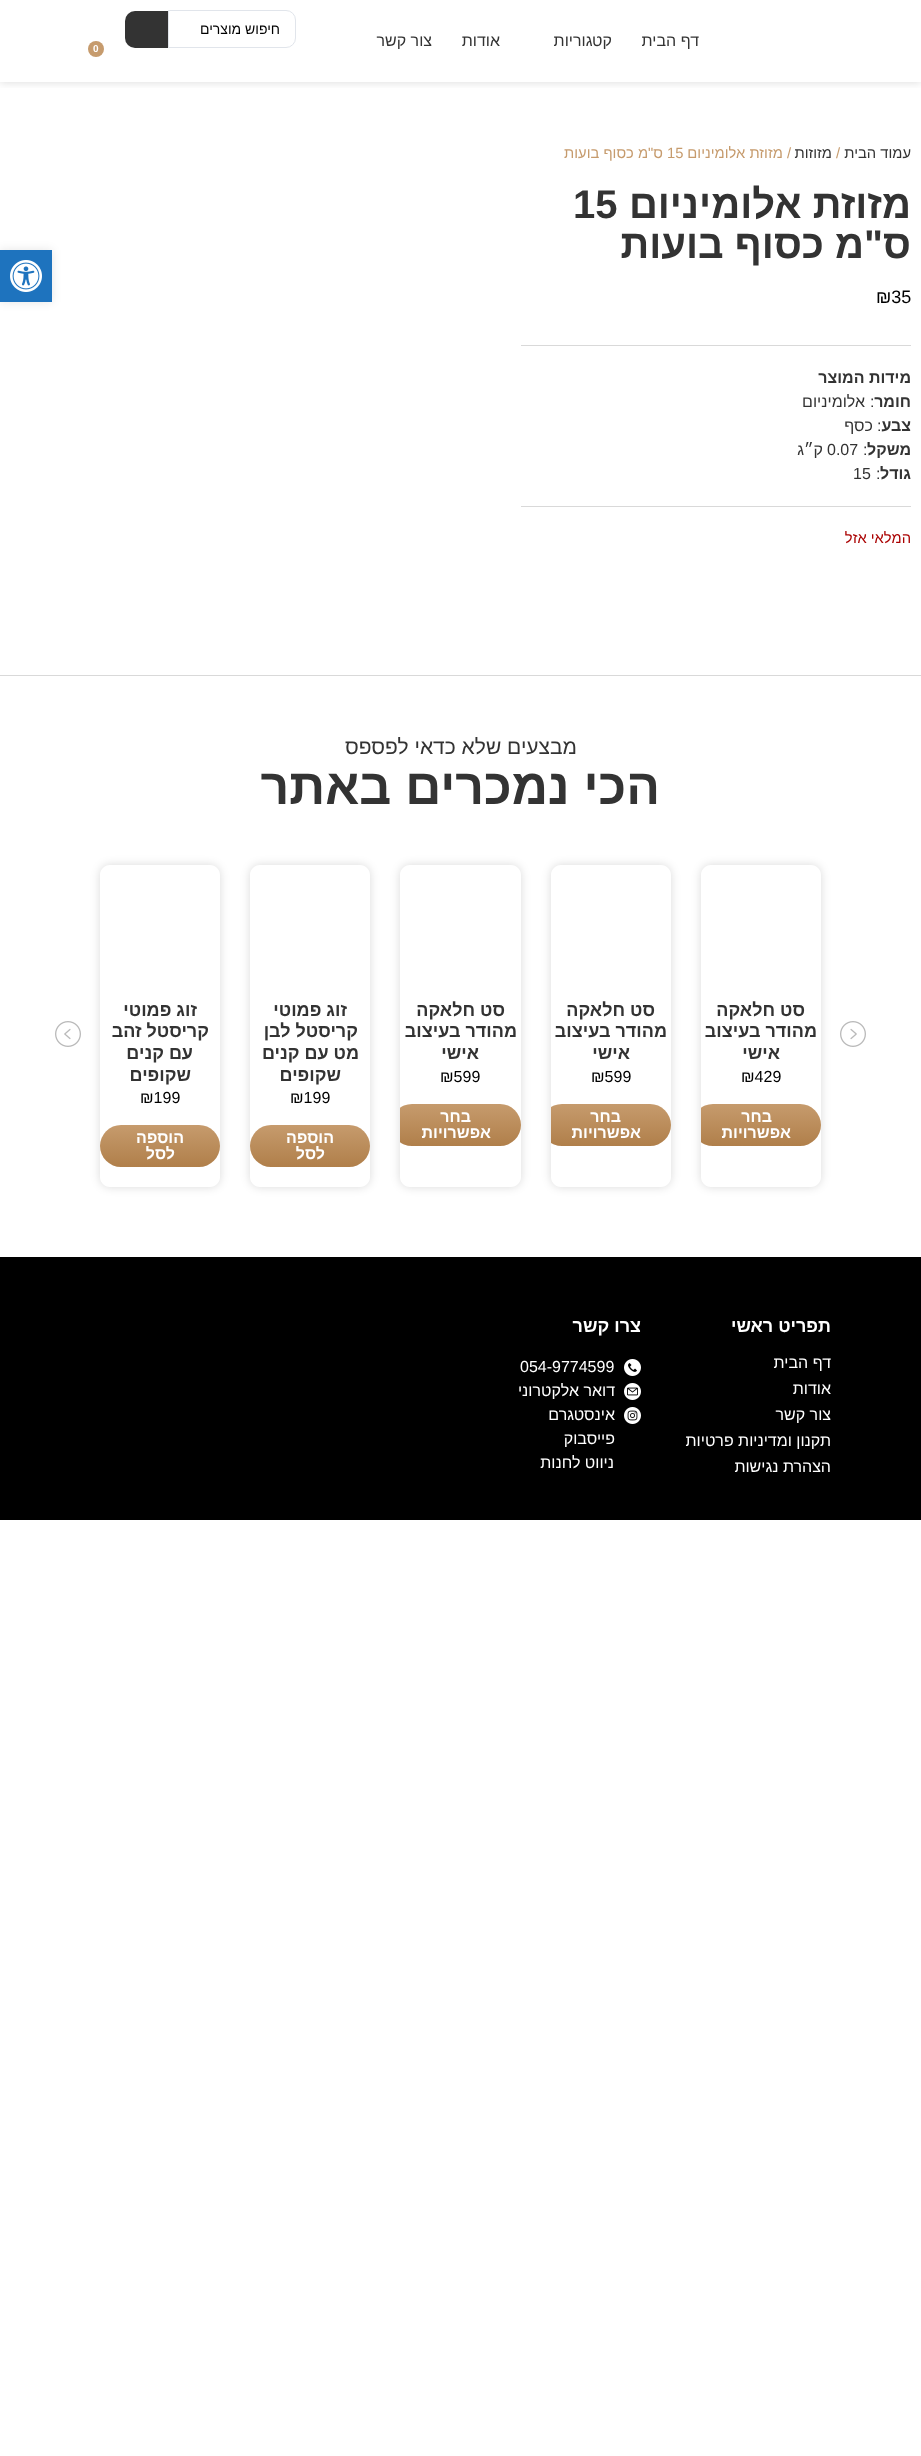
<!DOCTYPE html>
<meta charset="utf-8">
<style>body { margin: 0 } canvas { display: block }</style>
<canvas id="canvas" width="921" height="2456"></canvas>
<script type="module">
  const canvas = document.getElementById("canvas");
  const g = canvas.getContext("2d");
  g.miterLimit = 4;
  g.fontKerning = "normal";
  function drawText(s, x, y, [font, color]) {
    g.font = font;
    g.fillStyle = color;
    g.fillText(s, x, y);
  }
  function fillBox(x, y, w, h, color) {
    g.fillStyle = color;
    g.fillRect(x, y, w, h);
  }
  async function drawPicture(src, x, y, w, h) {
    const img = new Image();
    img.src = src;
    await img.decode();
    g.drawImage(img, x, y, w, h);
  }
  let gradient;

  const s1 = ["16px Liberation Sans", "#333333"];
  const s2 = ["14px Liberation Sans", "#000000"];
  const s3 = ["bold 10px Liberation Sans", "#FFFFFF"];
  const s4 = ["14.75px Liberation Sans", "#333333"];
  const s5 = ["14.75px Liberation Sans", "#C69B6D"];
  const s6 = ["bold 40px Liberation Sans", "#333333"];
  const s7 = ["18px Liberation Sans", "#000000"];
  const s8 = ["bold 16px Liberation Sans", "#333333"];
  const s9 = ["14.75px Liberation Sans", "#AA0000"];
  const s10 = ["21px Liberation Sans", "#333333"];
  const s11 = ["bold 50px Liberation Sans", "#333333"];
  const s12 = ["bold 18px Liberation Sans", "#333333"];
  const s13 = ["16px Liberation Sans", "#000000"];
  const s14 = ["bold 16px Liberation Sans", "#FFFFFF"];
  const s15 = ["bold 18px Liberation Sans", "#FFFFFF"];
  const s16 = ["16px Liberation Sans", "#FFFFFF"];

  fillBox(0, 0, 921, 2456, "#FFFFFF");
  g.save();
  g.beginPath();
  g.rect(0, 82, 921, 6);
  g.clip();
  g.fillStyle = "rgba(0, 0, 0, 0.15)";
  g.filter = "blur(5px)";
  g.beginPath();
  g.rect(0, 0, 921, 82);
  g.fill();
  g.filter = "none";
  g.restore();
  g.direction = "rtl";
  drawText("דף הבית", 699, 46, s1);
  drawText("קטגוריות", 612, 46, s1);
  drawText("אודות", 500, 46, s1);
  drawText("צור קשר", 432, 46, s1);
  g.beginPath();
  g.roundRect(168.5, 10.5, 127, 37, [0, 9.5, 9.5, 0]);
  g.strokeStyle = "#E1E5EB";
  g.stroke();
  drawText("חיפוש מוצרים", 280, 34, s2);
  g.fillStyle = "#333333";
  g.beginPath();
  g.roundRect(125, 11, 43, 37, [10, 0, 0, 10]);
  g.fill();
  g.fillStyle = "#C69B6D";
  g.beginPath();
  g.arc(96, 49, 8, 0, Math.PI * 2);
  g.fill();
  g.direction = "ltr";
  drawText("0", 93, 52, s3);
  g.direction = "rtl";
  drawText("עמוד הבית", 911, 158, s4);
  g.direction = "ltr";
  drawText("/", 836, 158, s5);
  g.direction = "rtl";
  drawText("מזוזות", 832, 158, s4);
  drawText("/ מזוזת אלומיניום", 791, 158, s5);
  g.direction = "ltr";
  drawText("15", 667, 158, s5);
  g.direction = "rtl";
  drawText("ס\"מ כסוף בועות", 663, 158, s5);
  drawText("מזוזת אלומיניום", 911, 218, s6);
  g.direction = "ltr";
  drawText("15", 573, 218, s6);
  g.direction = "rtl";
  drawText("ס\"מ כסוף בועות", 911, 258, s6);
  g.direction = "ltr";
  drawText("₪35", 876, 303, s7);
  fillBox(521, 345, 390, 1, "#D9D9D9");
  g.direction = "rtl";
  drawText("מידות המוצר", 911, 383, s8);
  drawText("חומר", 911, 407, s8);
  g.direction = "ltr";
  drawText(":", 870, 407, s1);
  g.direction = "rtl";
  drawText("אלומיניום", 865, 407, s1);
  drawText("צבע", 911, 431, s8);
  g.direction = "ltr";
  drawText(":", 877, 431, s1);
  g.direction = "rtl";
  drawText("כסף", 873, 431, s1);
  drawText("משקל", 911, 455, s8);
  g.direction = "ltr";
  drawText(":", 863, 455, s1);
  drawText("0.07", 827, 455, s1);
  g.direction = "rtl";
  drawText("ק״ג", 823, 455, s1);
  drawText("גודל", 911, 479, s8);
  g.direction = "ltr";
  drawText(":", 876, 479, s1);
  drawText("15", 853, 479, s1);
  fillBox(521, 506, 390, 1, "#D9D9D9");
  g.direction = "rtl";
  drawText("המלאי אזל", 911, 543, s9);
  fillBox(0, 675, 921, 1, "#D9D9D9");
  drawText("מבצעים שלא כדאי לפספס", 577, 754, s10);
  drawText("הכי נמכרים באתר", 660, 804, s11);
  await drawPicture("pic1.png", 840, 1021, 26, 26);
  g.save();
  g.beginPath();
  g.moveTo(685, 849);
  g.lineTo(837, 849);
  g.lineTo(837, 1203);
  g.lineTo(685, 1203);
  g.closePath();
  g.moveTo(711, 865);
  g.lineTo(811, 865);
  g.bezierCurveTo(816.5, 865, 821, 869.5, 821, 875);
  g.lineTo(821, 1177);
  g.bezierCurveTo(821, 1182.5, 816.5, 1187, 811, 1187);
  g.lineTo(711, 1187);
  g.bezierCurveTo(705.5, 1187, 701, 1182.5, 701, 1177);
  g.lineTo(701, 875);
  g.bezierCurveTo(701, 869.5, 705.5, 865, 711, 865);
  g.closePath();
  g.clip("evenodd");
  g.fillStyle = "rgba(0, 0, 0, 0.15)";
  g.filter = "blur(5px)";
  g.beginPath();
  g.roundRect(701, 865, 120, 322, 10);
  g.fill();
  g.filter = "none";
  g.restore();
  drawText("סט חלאקה", 805, 1016, s12);
  drawText("מהודר בעיצוב", 817, 1037, s12);
  drawText("אישי", 780, 1059, s12);
  g.direction = "ltr";
  drawText("₪429", 741, 1082, s13);
  g.save();
  g.beginPath();
  g.roundRect(701, 865, 120, 322, 10);
  g.clip();
  gradient = g.createLinearGradient(757, 1104, 757, 1146);
  gradient.addColorStop(0, "#C69B6D");
  gradient.addColorStop(1, "#B07F4A");
  g.fillStyle = gradient;
  g.beginPath();
  g.roundRect(692, 1104, 129, 42, 21);
  g.fill();
  g.restore();
  g.direction = "rtl";
  drawText("בחר", 772, 1122, s14);
  drawText("אפשרויות", 791, 1138, s14);
  g.save();
  g.beginPath();
  g.moveTo(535, 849);
  g.lineTo(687, 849);
  g.lineTo(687, 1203);
  g.lineTo(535, 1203);
  g.closePath();
  g.moveTo(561, 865);
  g.lineTo(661, 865);
  g.bezierCurveTo(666.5, 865, 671, 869.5, 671, 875);
  g.lineTo(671, 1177);
  g.bezierCurveTo(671, 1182.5, 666.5, 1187, 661, 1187);
  g.lineTo(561, 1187);
  g.bezierCurveTo(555.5, 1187, 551, 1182.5, 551, 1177);
  g.lineTo(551, 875);
  g.bezierCurveTo(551, 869.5, 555.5, 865, 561, 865);
  g.closePath();
  g.clip("evenodd");
  g.fillStyle = "rgba(0, 0, 0, 0.15)";
  g.filter = "blur(5px)";
  g.beginPath();
  g.roundRect(551, 865, 120, 322, 10);
  g.fill();
  g.filter = "none";
  g.restore();
  drawText("סט חלאקה", 655, 1016, s12);
  drawText("מהודר בעיצוב", 667, 1037, s12);
  drawText("אישי", 630, 1059, s12);
  g.direction = "ltr";
  drawText("₪599", 591, 1082, s13);
  g.save();
  g.beginPath();
  g.roundRect(551, 865, 120, 322, 10);
  g.clip();
  gradient = g.createLinearGradient(606, 1104, 606, 1146);
  gradient.addColorStop(0, "#C69B6D");
  gradient.addColorStop(1, "#B07F4A");
  g.fillStyle = gradient;
  g.beginPath();
  g.roundRect(541, 1104, 130, 42, 21);
  g.fill();
  g.restore();
  g.direction = "rtl";
  drawText("בחר", 621, 1122, s14);
  drawText("אפשרויות", 641, 1138, s14);
  g.save();
  g.beginPath();
  g.moveTo(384, 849);
  g.lineTo(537, 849);
  g.lineTo(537, 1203);
  g.lineTo(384, 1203);
  g.closePath();
  g.moveTo(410, 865);
  g.lineTo(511, 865);
  g.bezierCurveTo(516.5, 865, 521, 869.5, 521, 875);
  g.lineTo(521, 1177);
  g.bezierCurveTo(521, 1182.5, 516.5, 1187, 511, 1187);
  g.lineTo(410, 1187);
  g.bezierCurveTo(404.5, 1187, 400, 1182.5, 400, 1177);
  g.lineTo(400, 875);
  g.bezierCurveTo(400, 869.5, 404.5, 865, 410, 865);
  g.closePath();
  g.clip("evenodd");
  g.fillStyle = "rgba(0, 0, 0, 0.15)";
  g.filter = "blur(5px)";
  g.beginPath();
  g.roundRect(400, 865, 121, 322, 10);
  g.fill();
  g.filter = "none";
  g.restore();
  drawText("סט חלאקה", 505, 1016, s12);
  drawText("מהודר בעיצוב", 517, 1037, s12);
  drawText("אישי", 479, 1059, s12);
  g.direction = "ltr";
  drawText("₪599", 440, 1082, s13);
  g.save();
  g.beginPath();
  g.roundRect(400, 865, 121, 322, 10);
  g.clip();
  gradient = g.createLinearGradient(456, 1104, 456, 1146);
  gradient.addColorStop(0, "#C69B6D");
  gradient.addColorStop(1, "#B07F4A");
  g.fillStyle = gradient;
  g.beginPath();
  g.roundRect(391, 1104, 130, 42, 21);
  g.fill();
  g.restore();
  g.direction = "rtl";
  drawText("בחר", 471, 1122, s14);
  drawText("אפשרויות", 491, 1138, s14);
  g.save();
  g.beginPath();
  g.moveTo(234, 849);
  g.lineTo(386, 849);
  g.lineTo(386, 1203);
  g.lineTo(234, 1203);
  g.closePath();
  g.moveTo(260, 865);
  g.lineTo(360, 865);
  g.bezierCurveTo(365.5, 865, 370, 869.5, 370, 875);
  g.lineTo(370, 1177);
  g.bezierCurveTo(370, 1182.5, 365.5, 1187, 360, 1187);
  g.lineTo(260, 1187);
  g.bezierCurveTo(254.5, 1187, 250, 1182.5, 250, 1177);
  g.lineTo(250, 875);
  g.bezierCurveTo(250, 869.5, 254.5, 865, 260, 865);
  g.closePath();
  g.clip("evenodd");
  g.fillStyle = "rgba(0, 0, 0, 0.15)";
  g.filter = "blur(5px)";
  g.beginPath();
  g.roundRect(250, 865, 120, 322, 10);
  g.fill();
  g.filter = "none";
  g.restore();
  drawText("זוג פמוטי", 347, 1016, s12);
  drawText("קריסטל לבן", 358, 1037, s12);
  drawText("מט עם קנים", 359, 1059, s12);
  drawText("שקופים", 341, 1081, s12);
  g.direction = "ltr";
  drawText("₪199", 290, 1103, s13);
  gradient = g.createLinearGradient(310, 1125, 310, 1167);
  gradient.addColorStop(0, "#C69B6D");
  gradient.addColorStop(1, "#B07F4A");
  g.fillStyle = gradient;
  g.beginPath();
  g.roundRect(250, 1125, 120, 42, 21);
  g.fill();
  g.direction = "rtl";
  drawText("הוספה", 334, 1143, s14);
  drawText("לסל", 325, 1159, s14);
  g.save();
  g.beginPath();
  g.moveTo(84, 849);
  g.lineTo(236, 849);
  g.lineTo(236, 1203);
  g.lineTo(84, 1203);
  g.closePath();
  g.moveTo(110, 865);
  g.lineTo(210, 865);
  g.bezierCurveTo(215.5, 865, 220, 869.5, 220, 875);
  g.lineTo(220, 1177);
  g.bezierCurveTo(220, 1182.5, 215.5, 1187, 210, 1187);
  g.lineTo(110, 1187);
  g.bezierCurveTo(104.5, 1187, 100, 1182.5, 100, 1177);
  g.lineTo(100, 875);
  g.bezierCurveTo(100, 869.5, 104.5, 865, 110, 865);
  g.closePath();
  g.clip("evenodd");
  g.fillStyle = "rgba(0, 0, 0, 0.15)";
  g.filter = "blur(5px)";
  g.beginPath();
  g.roundRect(100, 865, 120, 322, 10);
  g.fill();
  g.filter = "none";
  g.restore();
  drawText("זוג פמוטי", 197, 1016, s12);
  drawText("קריסטל זהב", 209, 1037, s12);
  drawText("עם קנים", 193, 1059, s12);
  drawText("שקופים", 191, 1081, s12);
  g.direction = "ltr";
  drawText("₪199", 140, 1103, s13);
  gradient = g.createLinearGradient(160, 1125, 160, 1167);
  gradient.addColorStop(0, "#C69B6D");
  gradient.addColorStop(1, "#B07F4A");
  g.fillStyle = gradient;
  g.beginPath();
  g.roundRect(100, 1125, 120, 42, 21);
  g.fill();
  g.direction = "rtl";
  drawText("הוספה", 184, 1143, s14);
  drawText("לסל", 175, 1159, s14);
  await drawPicture("pic2.png", 55, 1021, 26, 26);
  g.fillStyle = "rgba(0, 0, 0, 0.1)";
  g.filter = "blur(5px)";
  g.beginPath();
  g.rect(0, 250, 52, 52);
  g.fill();
  g.filter = "none";
  fillBox(0, 250, 52, 52, "#1E73BE");
  await drawPicture("pic3.png", 10, 260, 32, 32);
  fillBox(0, 1257, 921, 263, "#000000");
  drawText("תפריט ראשי", 831, 1332, s15);
  drawText("דף הבית", 831, 1368, s16);
  drawText("אודות", 831, 1394, s16);
  drawText("צור קשר", 831, 1420, s16);
  drawText("תקנון ומדיניות פרטיות", 831, 1446, s16);
  drawText("הצהרת נגישות", 831, 1472, s16);
  drawText("צרו קשר", 641, 1332, s15);
  await drawPicture("pic4.png", 624, 1359, 17, 17);
  g.direction = "ltr";
  drawText("054-9774599", 520, 1372, s16);
  await drawPicture("pic5.png", 624, 1383, 17, 17);
  g.direction = "rtl";
  drawText("דואר אלקטרוני", 615, 1396, s16);
  await drawPicture("pic6.png", 624, 1407, 17, 17);
  drawText("אינסטגרם", 615, 1420, s16);
  drawText("פייסבוק", 615, 1444, s16);
  drawText("ניווט לחנות", 614, 1468, s16);
</script>
